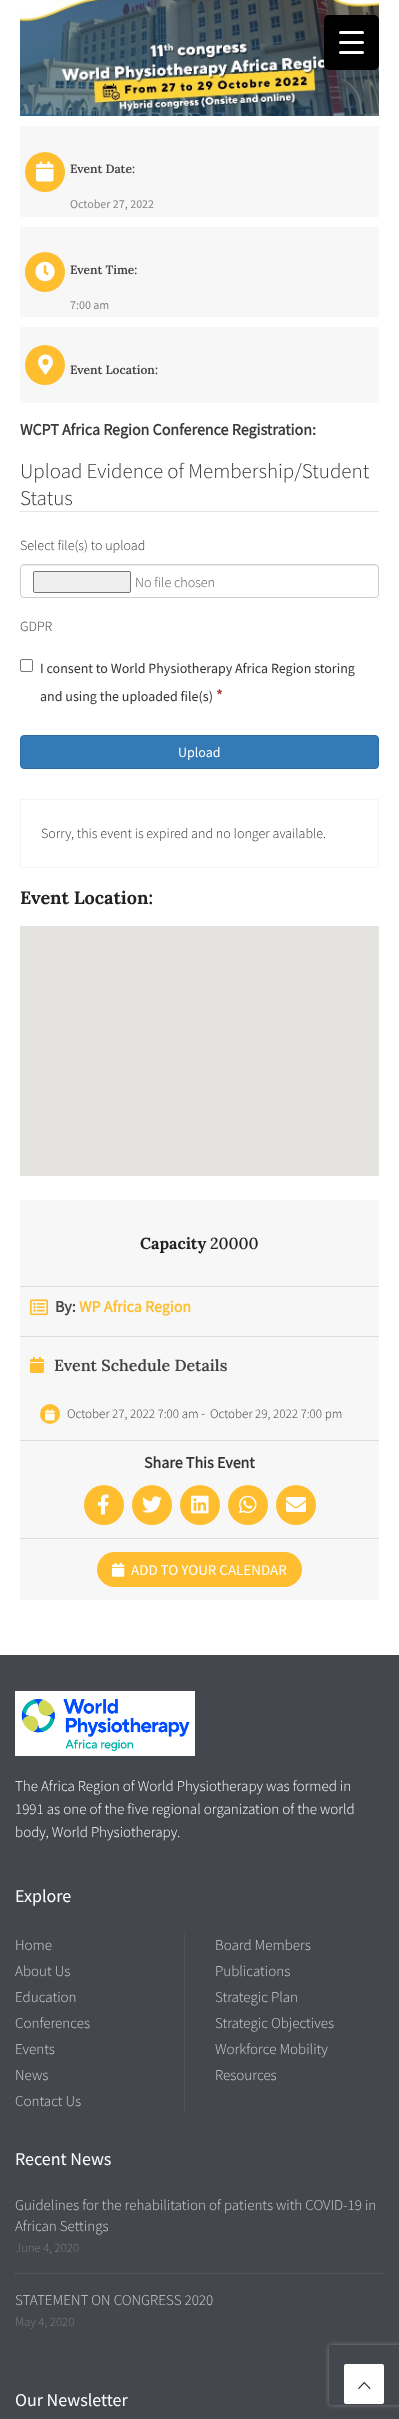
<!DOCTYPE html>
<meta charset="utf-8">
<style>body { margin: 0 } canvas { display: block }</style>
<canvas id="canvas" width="399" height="2419"></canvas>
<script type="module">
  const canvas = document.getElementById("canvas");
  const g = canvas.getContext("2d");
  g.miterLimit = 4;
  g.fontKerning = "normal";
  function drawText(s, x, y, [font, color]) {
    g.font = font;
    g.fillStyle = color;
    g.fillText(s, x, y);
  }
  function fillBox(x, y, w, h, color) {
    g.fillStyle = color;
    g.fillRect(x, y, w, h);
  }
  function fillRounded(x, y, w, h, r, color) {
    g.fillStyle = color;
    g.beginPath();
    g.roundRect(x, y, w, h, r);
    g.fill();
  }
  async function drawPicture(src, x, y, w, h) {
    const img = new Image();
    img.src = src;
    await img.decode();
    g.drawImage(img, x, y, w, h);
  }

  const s1 = ["600 12px Lora", "#444444"];
  const s2 = ["12px Source Sans Pro", "#878787"];
  const s3 = ["bold 16px Source Sans Pro", "#3A3A3A"];
  const s4 = ["300 21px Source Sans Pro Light", "#333333"];
  const s5 = ["300 14px Source Sans Pro Light", "#333333"];
  const s6 = ["300 14px Source Sans Pro Light", "#555555"];
  const s7 = ["14px Source Sans Pro", "#333333"];
  const s8 = ["bold 16px Source Sans Pro", "#A94442"];
  const s9 = ["14px Source Sans Pro", "#FFFFFF"];
  const s10 = ["bold 18px Lora", "#222222"];
  const s11 = ["bold 16px Lora", "#222222"];
  const s12 = ["500 16px Lora", "#222222"];
  const s13 = ["bold 16px Source Sans Pro", "#444444"];
  const s14 = ["bold 16px Source Sans Pro", "#FFBE30"];
  const s15 = ["600 16px Lora", "#444444"];
  const s16 = ["300 13px Source Sans Pro Light", "#333333"];
  const s17 = ["bold 16px Source Sans Pro", "#333333"];
  const s18 = ["15px Source Sans Pro", "#FFFFFF"];
  const s19 = ["300 15px Source Sans Pro Light", "#FFFFFF"];
  const s20 = ["18px Source Sans Pro", "#FFFFFF"];
  const s21 = ["300 15px Source Sans Pro Light", "#D0D0D2"];
  const s22 = ["300 12.75px Source Sans Pro Light", "#7D7E83"];

  fillBox(0, 0, 399, 2419, "#FFFFFF");
  await drawPicture("pic1.png", 20, 0, 359, 116);
  fillRounded(324, 15, 55, 55, 5, "#000000");
  fillRounded(339, 41, 25, 3, 1.5, "#FFFFFF");
  fillRounded(339, 31, 25, 3, 1.5, "#FFFFFF");
  fillRounded(339, 51, 25, 3, 1.5, "#FFFFFF");
  fillBox(20, 126, 359, 91, "#F7F7F7");
  g.fillStyle = "#FFBE30";
  g.beginPath();
  g.arc(45, 172, 20, 0, Math.PI * 2);
  g.fill();
  await drawPicture("pic2.png", 36, 161, 18, 21);
  drawText("Event Date:", 70, 173, s1);
  drawText("October 27, 2022", 70, 208, s2);
  fillBox(20, 227, 359, 90, "#F7F7F7");
  g.fillStyle = "#FFBE30";
  g.beginPath();
  g.arc(45, 272, 20, 0, Math.PI * 2);
  g.fill();
  await drawPicture("pic3.png", 35, 261, 20, 21);
  drawText("Event Time:", 70, 274, s1);
  drawText("7:00 am", 70, 309, s2);
  fillBox(20, 327, 359, 76, "#F7F7F7");
  g.fillStyle = "#FFBE30";
  g.beginPath();
  g.arc(45, 365, 20, 0, Math.PI * 2);
  g.fill();
  await drawPicture("pic4.png", 38, 354, 15, 21);
  drawText("Event Location:", 70, 374, s1);
  drawText("WCPT Africa Region Conference Registration:", 20, 435, s3);
  fillBox(20, 511, 359, 1, "#E5E5E5");
  drawText("Upload Evidence of Membership/Student", 20, 478, s4);
  drawText("Status", 20, 505, s4);
  drawText("Select file(s) to upload", 20, 550, s5);
  g.fillStyle = "#ECECEC";
  g.beginPath();
  g.moveTo(24, 566);
  g.lineTo(375, 566);
  g.bezierCurveTo(377, 566, 378, 567, 378, 569);
  g.bezierCurveTo(378, 567, 377, 565, 375, 565);
  g.lineTo(24, 565);
  g.lineTo(22, 566);
  g.lineTo(21, 569);
  g.bezierCurveTo(21, 567, 22, 566, 24, 566);
  g.closePath();
  g.fill();
  g.beginPath();
  g.roundRect(20.5, 564.5, 358, 33, 3.5);
  g.strokeStyle = "#CCCCCC";
  g.stroke();
  g.fillStyle = "#EFEFEF";
  g.beginPath();
  g.roundRect(33.5, 571.5, 97, 21, 1.5);
  g.fill();
  g.strokeStyle = "#767676";
  g.stroke();
  drawText("No file chosen", 135, 587, s6);
  drawText("GDPR", 20, 631, s5);
  g.beginPath();
  g.roundRect(20.5, 659.5, 12, 12, 1.5);
  g.stroke();
  drawText("I consent to World Physiotherapy Africa Region storing", 40, 673, s7);
  drawText("and using the uploaded file(s)", 40, 701, s7);
  drawText("*", 216, 701, s8);
  g.fillStyle = "#337AB7";
  g.beginPath();
  g.roundRect(20.5, 735.5, 358, 33, 3.5);
  g.fill();
  g.strokeStyle = "#2E6DA4";
  g.stroke();
  drawText("Upload", 178, 757, s9);
  g.strokeStyle = "#F5F5F5";
  g.strokeRect(20.5, 799.5, 358, 68);
  drawText("Sorry, this event is expired and no longer available.", 41, 838, s5);
  drawText("Event Location:", 20, 904, s10);
  fillBox(20, 926, 359, 250, "#E5E3DF");
  fillBox(20, 1200, 359, 400, "#F7F7F7");
  fillBox(20, 1286, 359, 1, "#DDDDDD");
  drawText("Capacity", 140, 1249, s11);
  drawText("20000", 210, 1249, s12);
  await drawPicture("pic5.png", 30, 1299, 18, 17);
  drawText("By:", 55, 1312, s13);
  drawText("WP Africa Region", 79, 1312, s14);
  fillBox(20, 1336, 359, 1, "#DDDDDD");
  fillBox(20, 1440, 359, 1, "#DDDDDD");
  await drawPicture("pic6.png", 30, 1357, 14, 16);
  drawText("Event Schedule Details", 54, 1371, s15);
  g.fillStyle = "#FFBE30";
  g.beginPath();
  g.arc(50, 1414, 10, 0, Math.PI * 2);
  g.fill();
  await drawPicture("pic7.png", 45, 1409, 10, 12);
  drawText("October 27, 2022 7:00 am -", 67, 1418, s16);
  drawText("October 29, 2022 7:00 pm", 210, 1418, s16);
  fillBox(20, 1538, 359, 1, "#DDDDDD");
  drawText("Share This Event", 144, 1468, s17);
  g.fillStyle = "#FFBE30";
  g.beginPath();
  g.arc(104, 1505, 20, 0, Math.PI * 2);
  g.fill();
  await drawPicture("pic8.png", 97, 1494, 12, 21);
  g.beginPath();
  g.arc(152, 1505, 20, 0, Math.PI * 2);
  g.fill();
  await drawPicture("pic9.png", 142, 1496, 20, 17);
  g.beginPath();
  g.arc(200, 1505, 20, 0, Math.PI * 2);
  g.fill();
  await drawPicture("pic10.png", 191, 1495, 18, 19);
  g.beginPath();
  g.arc(248, 1505, 20, 0, Math.PI * 2);
  g.fill();
  await drawPicture("pic11.png", 239, 1495, 18, 19);
  g.beginPath();
  g.arc(296, 1505, 20, 0, Math.PI * 2);
  g.fill();
  await drawPicture("pic12.png", 286, 1497, 20, 15);
  fillRounded(97, 1552, 205, 35, 17.5, "#FFBE30");
  await drawPicture("pic13.png", 112, 1562, 13, 15);
  drawText("ADD TO YOUR CALENDAR", 131, 1575, s18);
  fillBox(0, 1655, 399, 764, "#45474E");
  await drawPicture("pic14.png", 15, 1691, 180, 65);
  drawText("The Africa Region of World Physiotherapy was formed in", 15, 1791, s19);
  drawText("1991 as one of the five regional organization of the world", 15, 1814, s19);
  drawText("body, World Physiotherapy.", 15, 1837, s19);
  drawText("Explore", 15, 1902, s20);
  g.beginPath();
  g.moveTo(184.5, 1934);
  g.lineTo(184.5, 2111);
  g.strokeStyle = "#616369";
  g.setLineDash([1, 1]);
  g.stroke();
  drawText("Home", 15, 1950, s21);
  drawText("About Us", 15, 1976, s21);
  drawText("Education", 15, 2002, s21);
  drawText("Conferences", 15, 2028, s21);
  drawText("Events", 15, 2054, s21);
  drawText("News", 15, 2080, s21);
  drawText("Contact Us", 15, 2106, s21);
  drawText("Board Members", 215, 1950, s21);
  drawText("Publications", 215, 1976, s21);
  drawText("Strategic Plan", 215, 2002, s21);
  drawText("Strategic Objectives", 215, 2028, s21);
  drawText("Workforce Mobility", 215, 2054, s21);
  drawText("Resources", 215, 2080, s21);
  drawText("Recent News", 15, 2165, s20);
  g.beginPath();
  g.moveTo(15, 2273.5);
  g.lineTo(384, 2273.5);
  g.stroke();
  drawText("Guidelines for the rehabilitation of patients with COVID-19 in", 15, 2210, s21);
  drawText("African Settings", 15, 2231, s21);
  drawText("June 4, 2020", 15, 2252, s22);
  drawText("STATEMENT ON CONGRESS 2020", 15, 2305, s21);
  drawText("May 4, 2020", 15, 2326, s22);
  drawText("Our Newsletter", 15, 2406, s20);
  g.save();
  g.beginPath();
  g.moveTo(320, 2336);
  g.lineTo(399, 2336);
  g.lineTo(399, 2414);
  g.lineTo(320, 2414);
  g.closePath();
  g.moveTo(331, 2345);
  g.lineTo(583, 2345);
  g.bezierCurveTo(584, 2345, 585, 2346, 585, 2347);
  g.lineTo(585, 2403);
  g.bezierCurveTo(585, 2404, 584, 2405, 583, 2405);
  g.lineTo(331, 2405);
  g.bezierCurveTo(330, 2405, 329, 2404, 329, 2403);
  g.lineTo(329, 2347);
  g.bezierCurveTo(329, 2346, 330, 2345, 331, 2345);
  g.closePath();
  g.clip("evenodd");
  g.fillStyle = "#808080";
  g.filter = "blur(2.5px)";
  g.beginPath();
  g.roundRect(329, 2345, 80, 60, 2);
  g.fill();
  g.filter = "none";
  g.restore();
  fillRounded(344, 2364, 40, 40, 2, "#FFFFFF");
  await drawPicture("pic15.png", 358, 2381, 13, 9);
</script>
